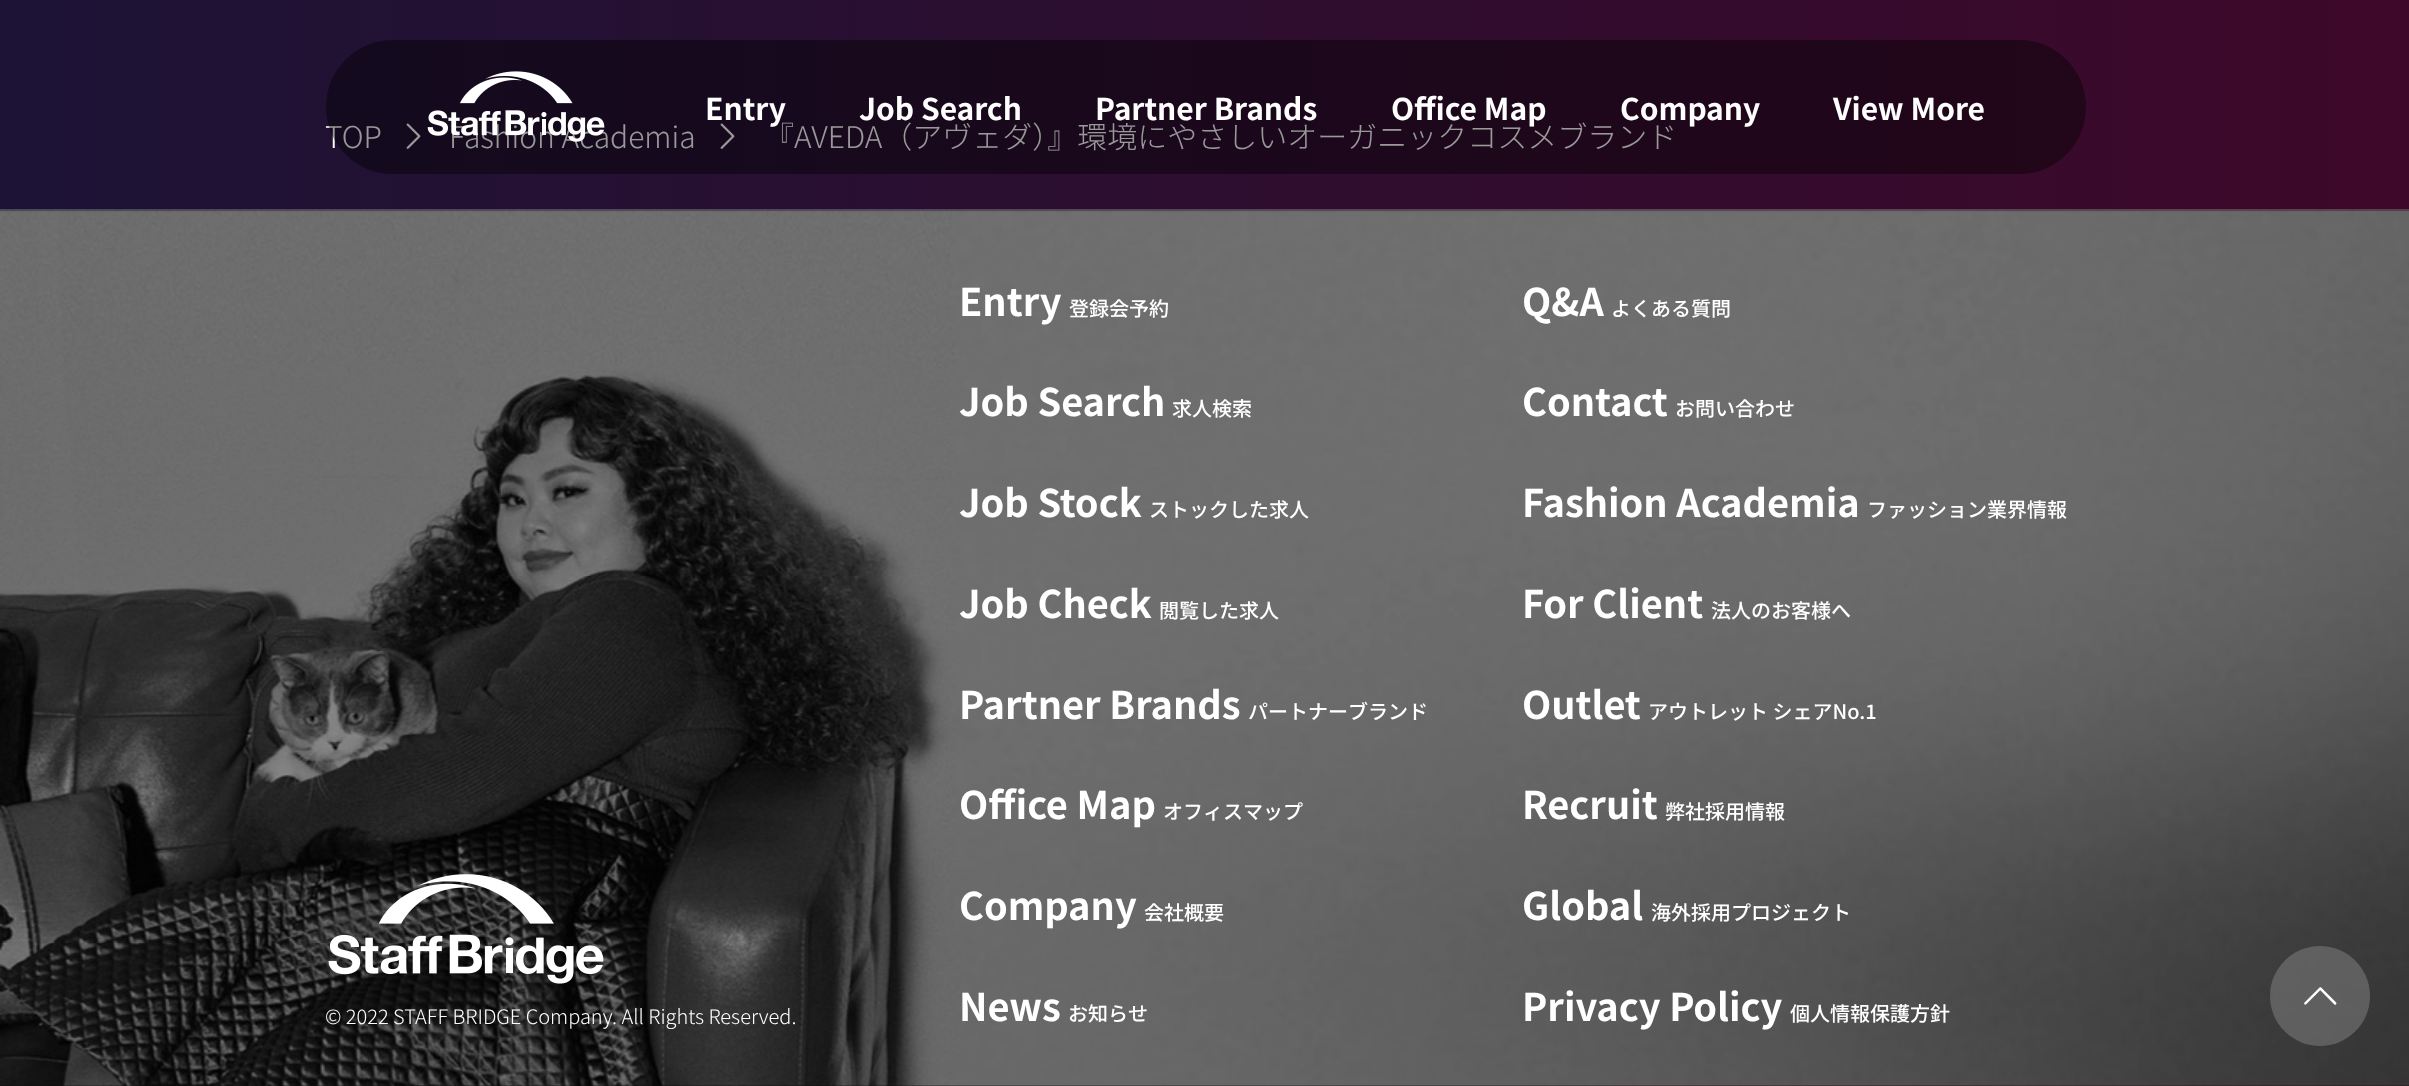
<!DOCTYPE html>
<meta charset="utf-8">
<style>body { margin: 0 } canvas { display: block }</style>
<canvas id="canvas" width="2409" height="1086"></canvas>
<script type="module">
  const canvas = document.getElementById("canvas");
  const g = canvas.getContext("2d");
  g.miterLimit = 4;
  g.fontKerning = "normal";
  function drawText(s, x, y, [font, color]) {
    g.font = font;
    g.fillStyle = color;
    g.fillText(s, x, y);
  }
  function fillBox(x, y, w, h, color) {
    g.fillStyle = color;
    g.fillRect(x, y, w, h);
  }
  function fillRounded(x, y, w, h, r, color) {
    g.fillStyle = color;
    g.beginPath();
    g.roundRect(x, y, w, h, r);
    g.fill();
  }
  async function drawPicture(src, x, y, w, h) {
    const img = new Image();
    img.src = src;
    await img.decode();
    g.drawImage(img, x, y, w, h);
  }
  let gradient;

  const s1 = ["300 30px Noto Sans JP", "#FFFFFF"];
  const s2 = ["bold 30px Noto Sans JP", "#FFFFFF"];
  const s3 = ["bold 38px Noto Sans JP", "#FFFFFF"];
  const s4 = ["500 20px Noto Sans JP", "#FFFFFF"];
  const s5 = ["300 20px Noto Sans JP", "#FFFFFF"];

  fillBox(0, 0, 2409, 1086, "#FFFFFF");
  gradient = g.createLinearGradient(-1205, 543, 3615, 543);
  gradient.addColorStop(0, "#0B183B");
  gradient.addColorStop(1, "#4F0324");
  g.fillStyle = gradient;
  g.fillRect(0, 0, 2409, 210);
  gradient = g.createLinearGradient(-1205, 543, 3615, 543);
  gradient.addColorStop(0, "#070E23");
  gradient.addColorStop(1, "#2F0216");
  g.fillStyle = gradient;
  g.fillRect(0, 210, 2409, 876);
  drawText("TOP", 325, 148, s1);
  await drawPicture("pic2.png", 406, 123, 15, 26);
  drawText("Fashion Academia", 449, 148, s1);
  await drawPicture("pic3.png", 720, 123, 15, 26);
  drawText("『AVEDA（アヴェダ）』環境にやさしいオーガニックコスメブランド", 764, 148, s1);
  fillRounded(326, 40, 1760, 134, 67, "rgba(0, 0, 0, 0.4)");
  await drawPicture("pic1.png", 427, 71, 178, 71);
  drawText("Entry", 705, 120, s2);
  drawText("Job Search", 859, 120, s2);
  drawText("Partner Brands", 1095, 120, s2);
  drawText("Office Map", 1391, 120, s2);
  drawText("Company", 1620, 120, s2);
  drawText("View More", 1833, 120, s2);
  await drawPicture("pic4.png", 0, 209, 2409, 877);
  await drawPicture("pic5.png", 328, 874, 276, 110);
  drawText("Entry", 959, 316, s3);
  drawText("登録会予約", 1069, 316, s4);
  drawText("Job Search", 959, 416, s3);
  drawText("求人検索", 1172, 416, s4);
  drawText("Job Stock", 959, 517, s3);
  drawText("ストックした求人", 1149, 517, s4);
  drawText("Job Check", 959, 618, s3);
  drawText("閲覧した求人", 1159, 618, s4);
  drawText("Partner Brands", 959, 719, s3);
  drawText("パートナーブランド", 1248, 719, s4);
  drawText("Office Map", 959, 819, s3);
  drawText("オフィスマップ", 1163, 819, s4);
  drawText("Company", 959, 920, s3);
  drawText("会社概要", 1144, 920, s4);
  drawText("News", 959, 1021, s3);
  drawText("お知らせ", 1068, 1021, s4);
  drawText("Q&A", 1522, 316, s3);
  drawText("よくある質問", 1611, 316, s4);
  drawText("Contact", 1522, 416, s3);
  drawText("お問い合わせ", 1675, 416, s4);
  drawText("Fashion Academia", 1522, 517, s3);
  drawText("ファッション業界情報", 1867, 517, s4);
  drawText("For Client", 1522, 618, s3);
  drawText("法人のお客様へ", 1711, 618, s4);
  drawText("Outlet", 1522, 719, s3);
  drawText("アウトレット シェアNo.1", 1648, 719, s4);
  drawText("Recruit", 1522, 819, s3);
  drawText("弊社採用情報", 1665, 819, s4);
  drawText("Global", 1522, 920, s3);
  drawText("海外採用プロジェクト", 1651, 920, s4);
  drawText("Privacy Policy", 1522, 1021, s3);
  drawText("個人情報保護方針", 1790, 1021, s4);
  drawText("© 2022 STAFF BRIDGE Company. All Rights Reserved.", 325, 1024, s5);
  g.fillStyle = "rgba(120, 120, 120, 0.6)";
  g.beginPath();
  g.arc(2320, 996, 50, 0, Math.PI * 2);
  g.fill();
  await drawPicture("pic6.png", 2304, 987, 33, 18);
</script>
